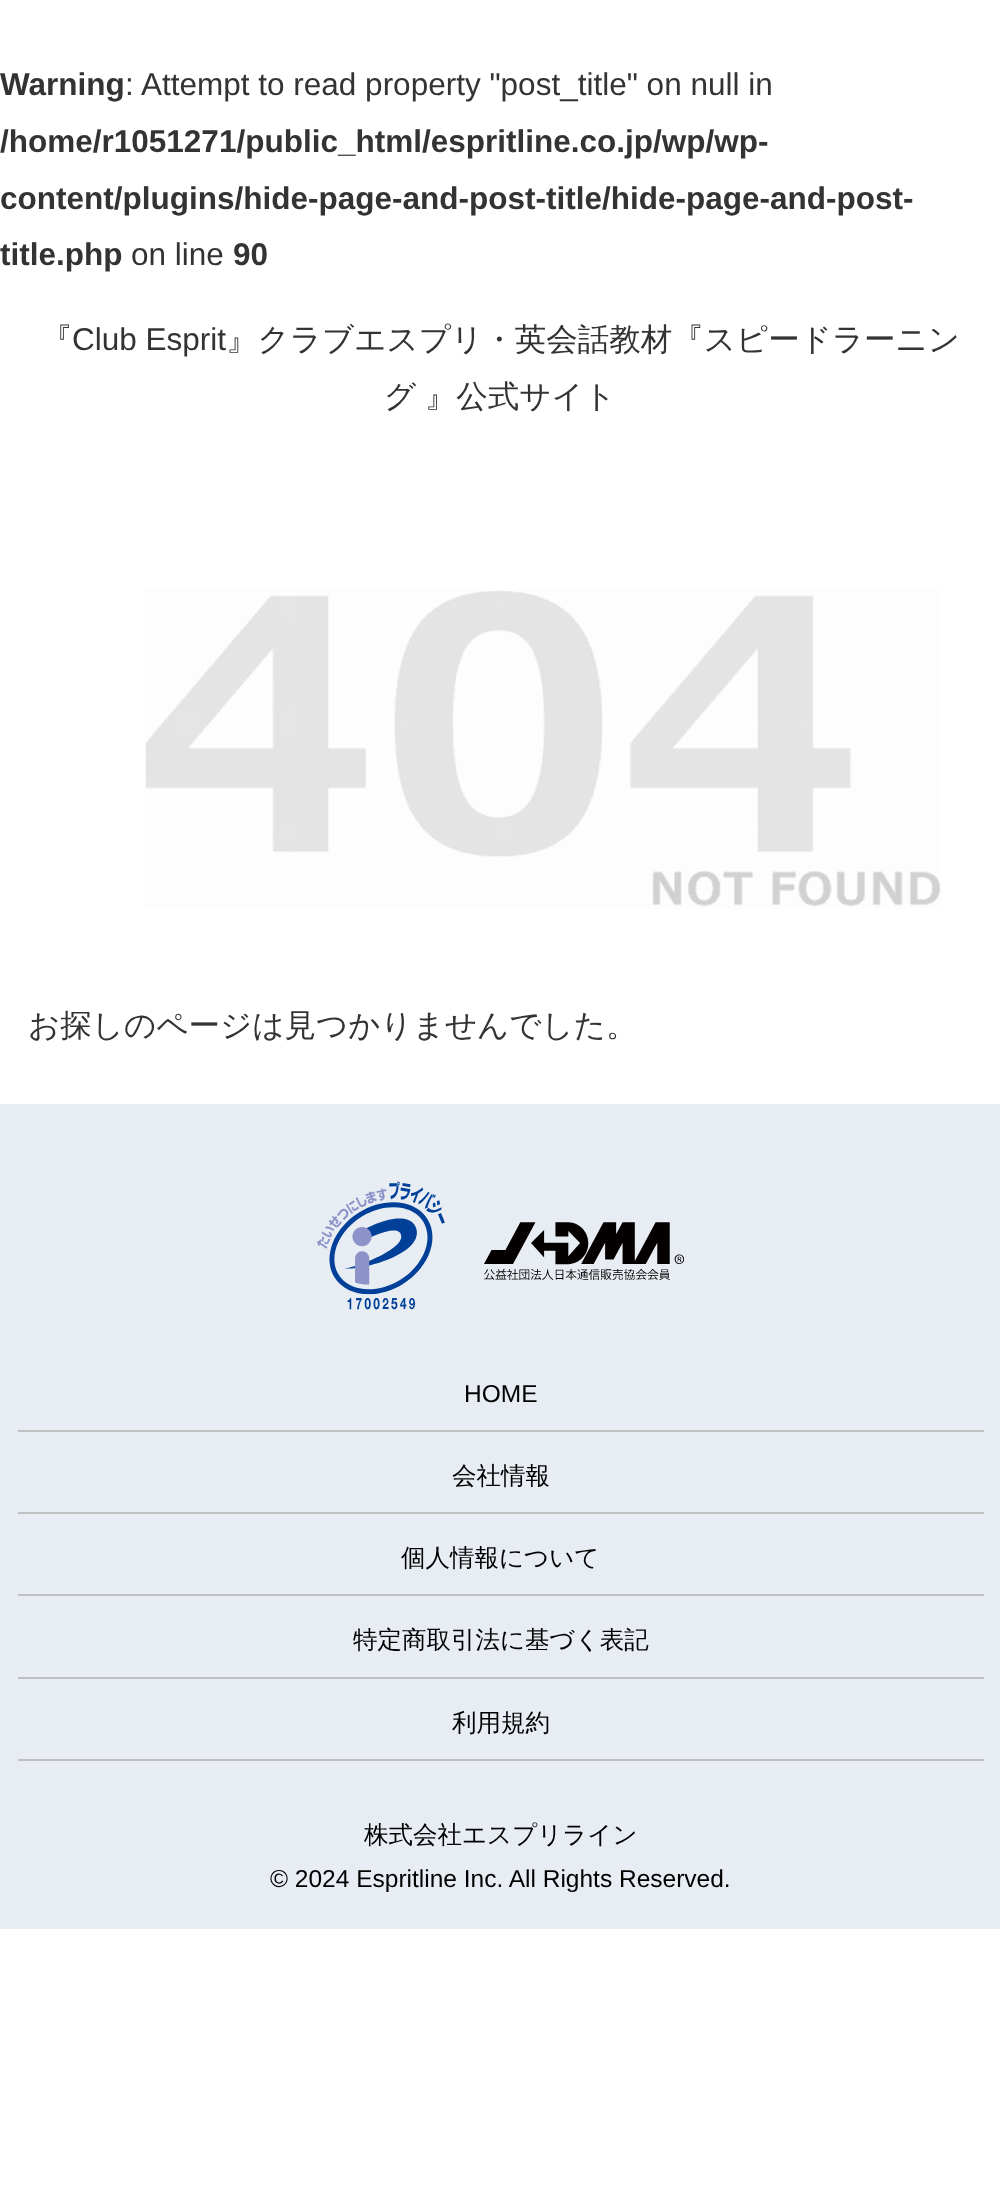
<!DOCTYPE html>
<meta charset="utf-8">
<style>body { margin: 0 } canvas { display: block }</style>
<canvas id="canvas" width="1000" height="2190"></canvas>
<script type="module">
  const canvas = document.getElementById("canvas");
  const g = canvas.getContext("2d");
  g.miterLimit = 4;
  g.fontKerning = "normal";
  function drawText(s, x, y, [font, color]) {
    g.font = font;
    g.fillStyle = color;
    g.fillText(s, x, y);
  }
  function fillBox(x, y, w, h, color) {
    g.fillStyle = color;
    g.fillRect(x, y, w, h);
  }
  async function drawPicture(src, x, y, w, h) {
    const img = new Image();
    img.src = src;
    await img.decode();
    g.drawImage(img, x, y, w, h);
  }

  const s1 = ["bold 31.5px Liberation Sans", "#333333"];
  const s2 = ["31.5px Liberation Sans", "#333333"];
  const s3 = ["500 31.5px WenQuanYi Zen Hei", "#333333"];
  const s4 = ["24.5px Liberation Sans", "#000000"];
  const s5 = ["500 24.5px WenQuanYi Zen Hei", "#000000"];

  fillBox(0, 0, 1000, 2190, "#FFFFFF");
  drawText("Warning", 0, 95, s1);
  drawText(":", 125, 95, s2);
  drawText("Attempt to read property \"post_title\" on null in", 141, 95, s2);
  drawText("/home/r1051271/public_html/espritline.co.jp/wp/wp-", 0, 152, s1);
  drawText("content/plugins/hide-page-and-post-title/hide-page-and-post-", 0, 209, s1);
  drawText("title.php", 0, 265, s1);
  drawText("on line", 131, 265, s2);
  drawText("90", 233, 265, s1);
  drawText("『", 41, 350, s3);
  drawText("Club Esprit", 72, 350, s2);
  drawText("』クラブエスプリ・英会話教材『スピードラーニン", 226, 350, s3);
  g.wordSpacing = "-1px";
  drawText("グ 』公式サイト", 384, 407, s3);
  await drawPicture("pic1.png", 145, 589, 796, 320);
  g.wordSpacing = "0px";
  drawText("お探しのページは見つかりませんでした。", 28, 1036, s3);
  fillBox(0, 1104, 1000, 825, "#E8EDF4");
  await drawPicture("pic2.png", 317, 1181, 367, 129);
  fillBox(18, 1430, 966, 2, "#C0C0C0");
  drawText("HOME", 464, 1402, s4);
  fillBox(18, 1512, 966, 2, "#C0C0C0");
  drawText("会社情報", 452, 1484, s5);
  fillBox(18, 1594, 966, 2, "#C0C0C0");
  drawText("個人情報について", 401, 1566, s5);
  fillBox(18, 1677, 966, 2, "#C0C0C0");
  drawText("特定商取引法に基づく表記", 353, 1648, s5);
  fillBox(18, 1759, 966, 2, "#C0C0C0");
  drawText("利用規約", 452, 1731, s5);
  drawText("株式会社エスプリライン", 364, 1843, s5);
  drawText("© 2024 Espritline Inc. All Rights Reserved.", 270, 1887, s4);
</script>
